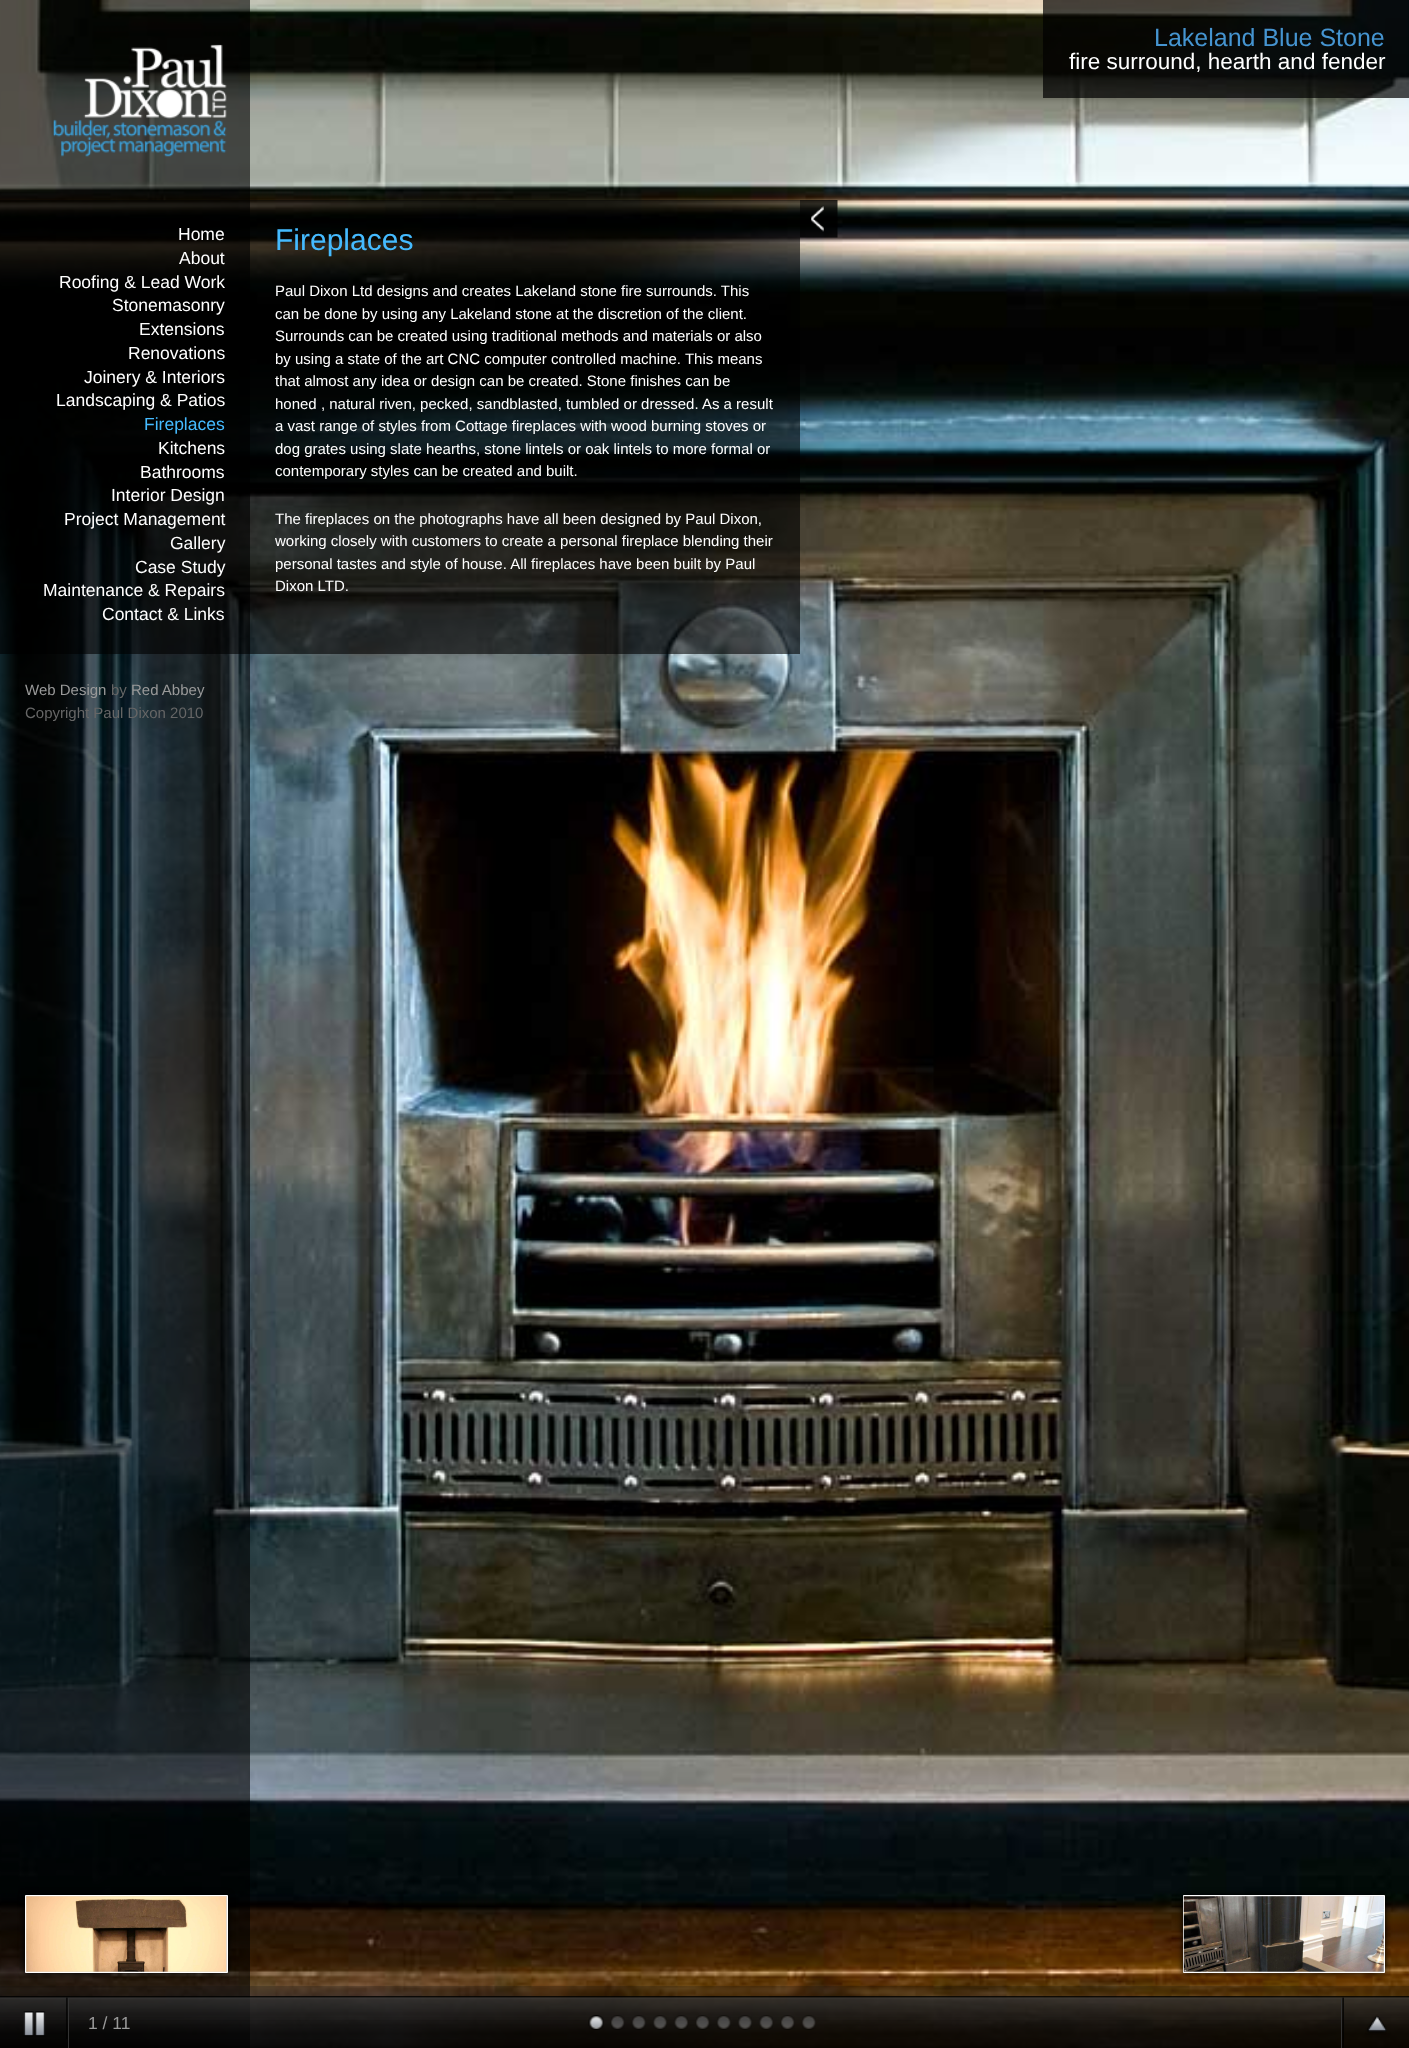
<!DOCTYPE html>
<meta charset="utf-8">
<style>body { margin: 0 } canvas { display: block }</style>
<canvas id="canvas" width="1409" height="2048"></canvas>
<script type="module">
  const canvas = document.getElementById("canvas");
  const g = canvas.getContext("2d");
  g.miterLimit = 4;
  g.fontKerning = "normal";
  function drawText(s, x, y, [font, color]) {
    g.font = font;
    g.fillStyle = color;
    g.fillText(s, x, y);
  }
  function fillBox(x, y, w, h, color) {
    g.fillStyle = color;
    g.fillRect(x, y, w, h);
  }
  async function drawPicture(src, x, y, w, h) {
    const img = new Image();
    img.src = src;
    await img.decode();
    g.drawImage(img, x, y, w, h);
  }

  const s1 = ["25px Liberation Sans", "#4594D0"];
  const s2 = ["22.5px Liberation Sans", "#FFFFFF"];
  const s3 = ["17.5px Liberation Sans", "#FFFFFF"];
  const s4 = ["17.5px Liberation Sans", "#45BBFF"];
  const s5 = ["30px Liberation Sans", "#45BBFF"];
  const s6 = ["15px Liberation Sans", "#FFFFFF"];
  const s7 = ["15px Liberation Sans", "#999999"];
  const s8 = ["15px Liberation Sans", "#666666"];
  const s9 = ["17.5px Liberation Sans", "#999999"];

  fillBox(0, 0, 1409, 2048, "#FFFFFF");
  await drawPicture("pic1.png", 0, 0, 1409, 2048);
  fillBox(0, 0, 250, 2048, "rgba(0, 0, 0, 0.6)");
  fillBox(1043, 0, 366, 98, "rgba(0, 0, 0, 0.7)");
  drawText("Lakeland Blue Stone", 1154, 46, s1);
  drawText("fire surround, hearth and fender", 1069, 69, s2);
  await drawPicture("pic2.png", 53, 44, 174, 113);
  fillBox(0, 200, 800, 454, "rgba(0, 0, 0, 0.6)");
  drawText("Home", 178, 240, s3);
  drawText("About", 179, 264, s3);
  drawText("Roofing & Lead Work", 59, 288, s3);
  drawText("Stonemasonry", 112, 311, s3);
  drawText("Extensions", 139, 335, s3);
  drawText("Renovations", 128, 359, s3);
  drawText("Joinery & Interiors", 84, 383, s3);
  drawText("Landscaping & Patios", 56, 406, s3);
  drawText("Fireplaces", 144, 430, s4);
  drawText("Kitchens", 158, 454, s3);
  drawText("Bathrooms", 140, 478, s3);
  drawText("Interior Design", 111, 501, s3);
  drawText("Project Management", 64, 525, s3);
  drawText("Gallery", 170, 549, s3);
  drawText("Case Study", 135, 573, s3);
  drawText("Maintenance & Repairs", 43, 596, s3);
  drawText("Contact & Links", 102, 620, s3);
  await drawPicture("pic3.png", 800, 200, 38, 38);
  drawText("Fireplaces", 275, 250, s5);
  drawText("Paul Dixon Ltd designs and creates Lakeland stone fire surrounds. This", 275, 296, s6);
  drawText("can be done by using any Lakeland stone at the discretion of the client.", 275, 319, s6);
  drawText("Surrounds can be created using traditional methods and materials or also", 275, 341, s6);
  drawText("by using a state of the art CNC computer controlled machine. This means", 275, 364, s6);
  drawText("that almost any idea or design can be created. Stone finishes can be", 275, 386, s6);
  drawText("honed , natural riven, pecked, sandblasted, tumbled or dressed. As a result", 275, 409, s6);
  drawText("a vast range of styles from Cottage fireplaces with wood burning stoves or", 275, 431, s6);
  drawText("dog grates using slate hearths, stone lintels or oak lintels to more formal or", 275, 454, s6);
  drawText("contemporary styles can be created and built.", 275, 476, s6);
  drawText("The fireplaces on the photographs have all been designed by Paul Dixon,", 275, 524, s6);
  drawText("working closely with customers to create a personal fireplace blending their", 275, 546, s6);
  drawText("personal tastes and style of house. All fireplaces have been built by Paul", 275, 569, s6);
  drawText("Dixon LTD.", 275, 591, s6);
  drawText("Web Design", 25, 695, s7);
  drawText("by", 111, 695, s8);
  drawText("Red Abbey", 131, 695, s7);
  drawText("Copyright Paul Dixon 2010", 25, 718, s8);
  g.fillStyle = "#000000";
  g.filter = "blur(3px)";
  g.beginPath();
  g.rect(25, 1895, 203, 78);
  g.fill();
  g.filter = "none";
  g.fillStyle = "#DDDDDD";
  g.beginPath();
  g.rect(25.5, 1895.5, 202, 77);
  g.fill();
  g.strokeStyle = "#FFFFFF";
  g.stroke();
  await drawPicture("pic4.png", 26, 1896, 201, 76);
  g.fillStyle = "#000000";
  g.filter = "blur(3px)";
  g.beginPath();
  g.rect(1183, 1895, 202, 78);
  g.fill();
  g.filter = "none";
  g.fillStyle = "#DDDDDD";
  g.beginPath();
  g.rect(1183.5, 1895.5, 201, 77);
  g.fill();
  g.stroke();
  await drawPicture("pic5.png", 1183, 1896, 201, 76);
  fillBox(0, 1986, 1409, 10, "rgba(16, 16, 16, 0.25)");
  g.fillStyle = "#000000";
  g.filter = "blur(2.5px)";
  g.beginPath();
  g.rect(0, 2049, 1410, 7);
  g.fill();
  g.filter = "none";
  await drawPicture("pic6.png", 0, 1996, 1409, 52);
  fillBox(68, 1998, 1, 50, "#333333");
  await drawPicture("pic7.png", 23, 1997, 45, 42);
  drawText("1 / 11", 88, 2029, s9);
  await drawPicture("pic8.png", 588, 2015, 16, 15);
  await drawPicture("pic9.png", 611, 2015, 14, 15);
  await drawPicture("pic10.png", 632, 2015, 14, 15);
  await drawPicture("pic11.png", 653, 2015, 14, 15);
  await drawPicture("pic12.png", 674, 2015, 14, 15);
  await drawPicture("pic13.png", 696, 2015, 14, 15);
  await drawPicture("pic14.png", 717, 2015, 14, 15);
  await drawPicture("pic15.png", 738, 2015, 14, 15);
  await drawPicture("pic16.png", 759, 2015, 14, 15);
  await drawPicture("pic17.png", 781, 2015, 14, 15);
  await drawPicture("pic18.png", 802, 2015, 14, 15);
  fillBox(1341, 1998, 1, 50, "#333333");
  await drawPicture("pic19.png", 1342, 1997, 45, 51);
</script>
